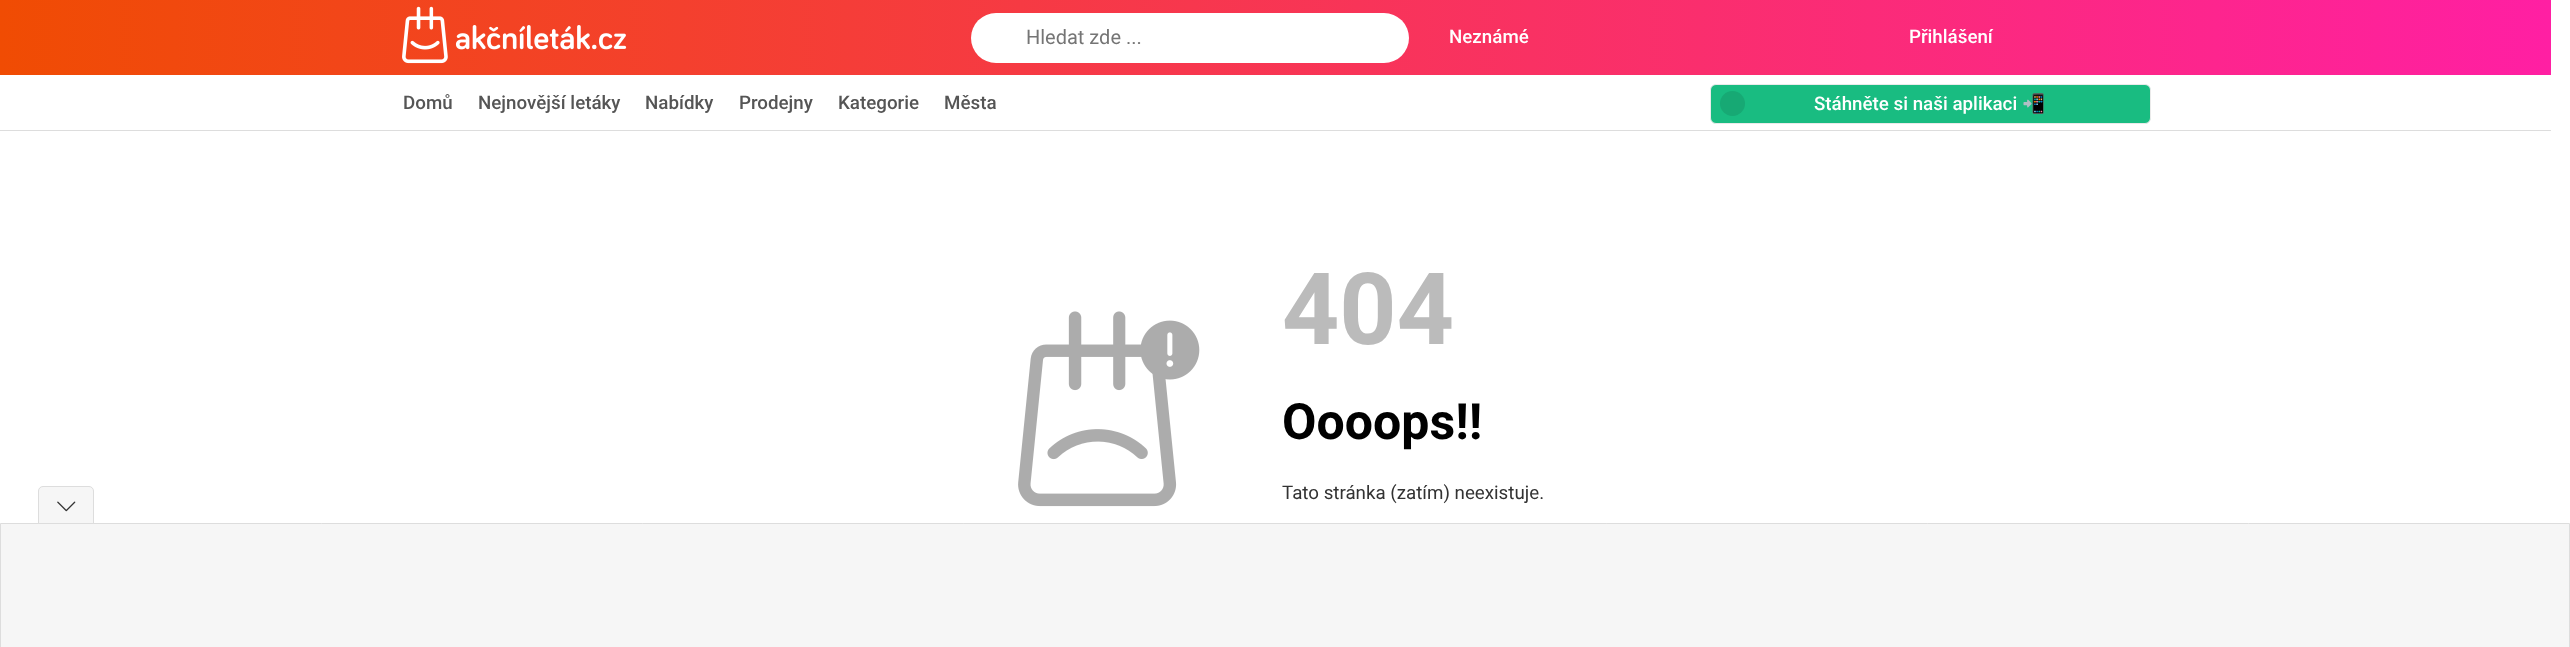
<!DOCTYPE html>
<meta charset="utf-8">
<style>body { margin: 0 } canvas { display: block }</style>
<canvas id="canvas" width="2570" height="647"></canvas>
<script type="module">
  const canvas = document.getElementById("canvas");
  const g = canvas.getContext("2d");
  g.miterLimit = 4;
  g.fontKerning = "normal";
  function drawText(s, x, y, [font, color]) {
    g.font = font;
    g.fillStyle = color;
    g.fillText(s, x, y);
  }
  function fillBox(x, y, w, h, color) {
    g.fillStyle = color;
    g.fillRect(x, y, w, h);
  }
  function fillRounded(x, y, w, h, r, color) {
    g.fillStyle = color;
    g.beginPath();
    g.roundRect(x, y, w, h, r);
    g.fill();
  }
  async function drawPicture(src, x, y, w, h) {
    const img = new Image();
    img.src = src;
    await img.decode();
    g.drawImage(img, x, y, w, h);
  }
  let gradient;

  const s1 = ["20px Roboto", "#757575"];
  const s2 = ["500 18.75px Roboto", "#FFFFFF"];
  const s3 = ["500 18.75px Roboto", "#555555"];
  const s4 = ["18.75px Noto Color Emoji", "#FFFFFF"];
  const s5 = ["bold 100px Roboto", "#BBBBBB"];
  const s6 = ["bold 50px Roboto", "#000000"];
  const s7 = ["18.75px Roboto", "#333333"];

  fillBox(0, 0, 2570, 647, "#FFFFFF");
  g.fillStyle = "#DDDDDD";
  g.filter = "blur(0.5px)";
  g.beginPath();
  g.rect(0, 1, 2551, 130);
  g.fill();
  g.filter = "none";
  gradient = g.createLinearGradient(2551, 65, 0, 65);
  gradient.addColorStop(0, "#FF1FA3");
  gradient.addColorStop(1, "#F04C03");
  g.fillStyle = gradient;
  g.fillRect(0, 0, 2551, 75);
  await drawPicture("pic1.png", 402, 6, 225, 58);
  fillRounded(971, 13, 438, 50, 25, "#FFFFFF");
  drawText("Hledat zde ...", 1026, 44, s1);
  drawText("Neznámé", 1449, 43, s2);
  drawText("Přihlášení", 1909, 43, s2);
  fillBox(0, 75, 2551, 55, "#FFFFFF");
  drawText("Domů", 403, 109, s3);
  drawText("Nejnovější letáky", 478, 109, s3);
  drawText("Nabídky", 645, 109, s3);
  drawText("Prodejny", 739, 109, s3);
  drawText("Kategorie", 838, 109, s3);
  drawText("Města", 944, 109, s3);
  g.fillStyle = "#19BC81";
  g.beginPath();
  g.roundRect(1710.5, 84.5, 440, 39, 5.5);
  g.fill();
  g.strokeStyle = "#EAEAEA";
  g.stroke();
  g.fillStyle = "#17A974";
  g.beginPath();
  g.arc(1732.5, 103.5, 12.5, 0, Math.PI * 2);
  g.fill();
  drawText("Stáhněte si naši aplikaci", 1814, 110, s2);
  drawText("📲", 2022, 110, s4);
  await drawPicture("pic2.png", 1018, 311, 182, 196);
  drawText("404", 1282, 344, s5);
  drawText("Oooops!!", 1282, 439, s6);
  drawText("Tato stránka (zatím) neexistuje.", 1282, 499, s7);
  g.fillStyle = "#F6F6F6";
  g.beginPath();
  g.rect(0.5, 523.5, 2569, 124);
  g.fill();
  g.strokeStyle = "#DDDDDD";
  g.stroke();
  g.beginPath();
  g.roundRect(38.5, 486.5, 55, 37, [4.5, 4.5, 0, 0]);
  g.fill();
  g.stroke();
  await drawPicture("pic3.png", 57, 501, 19, 11);
</script>
